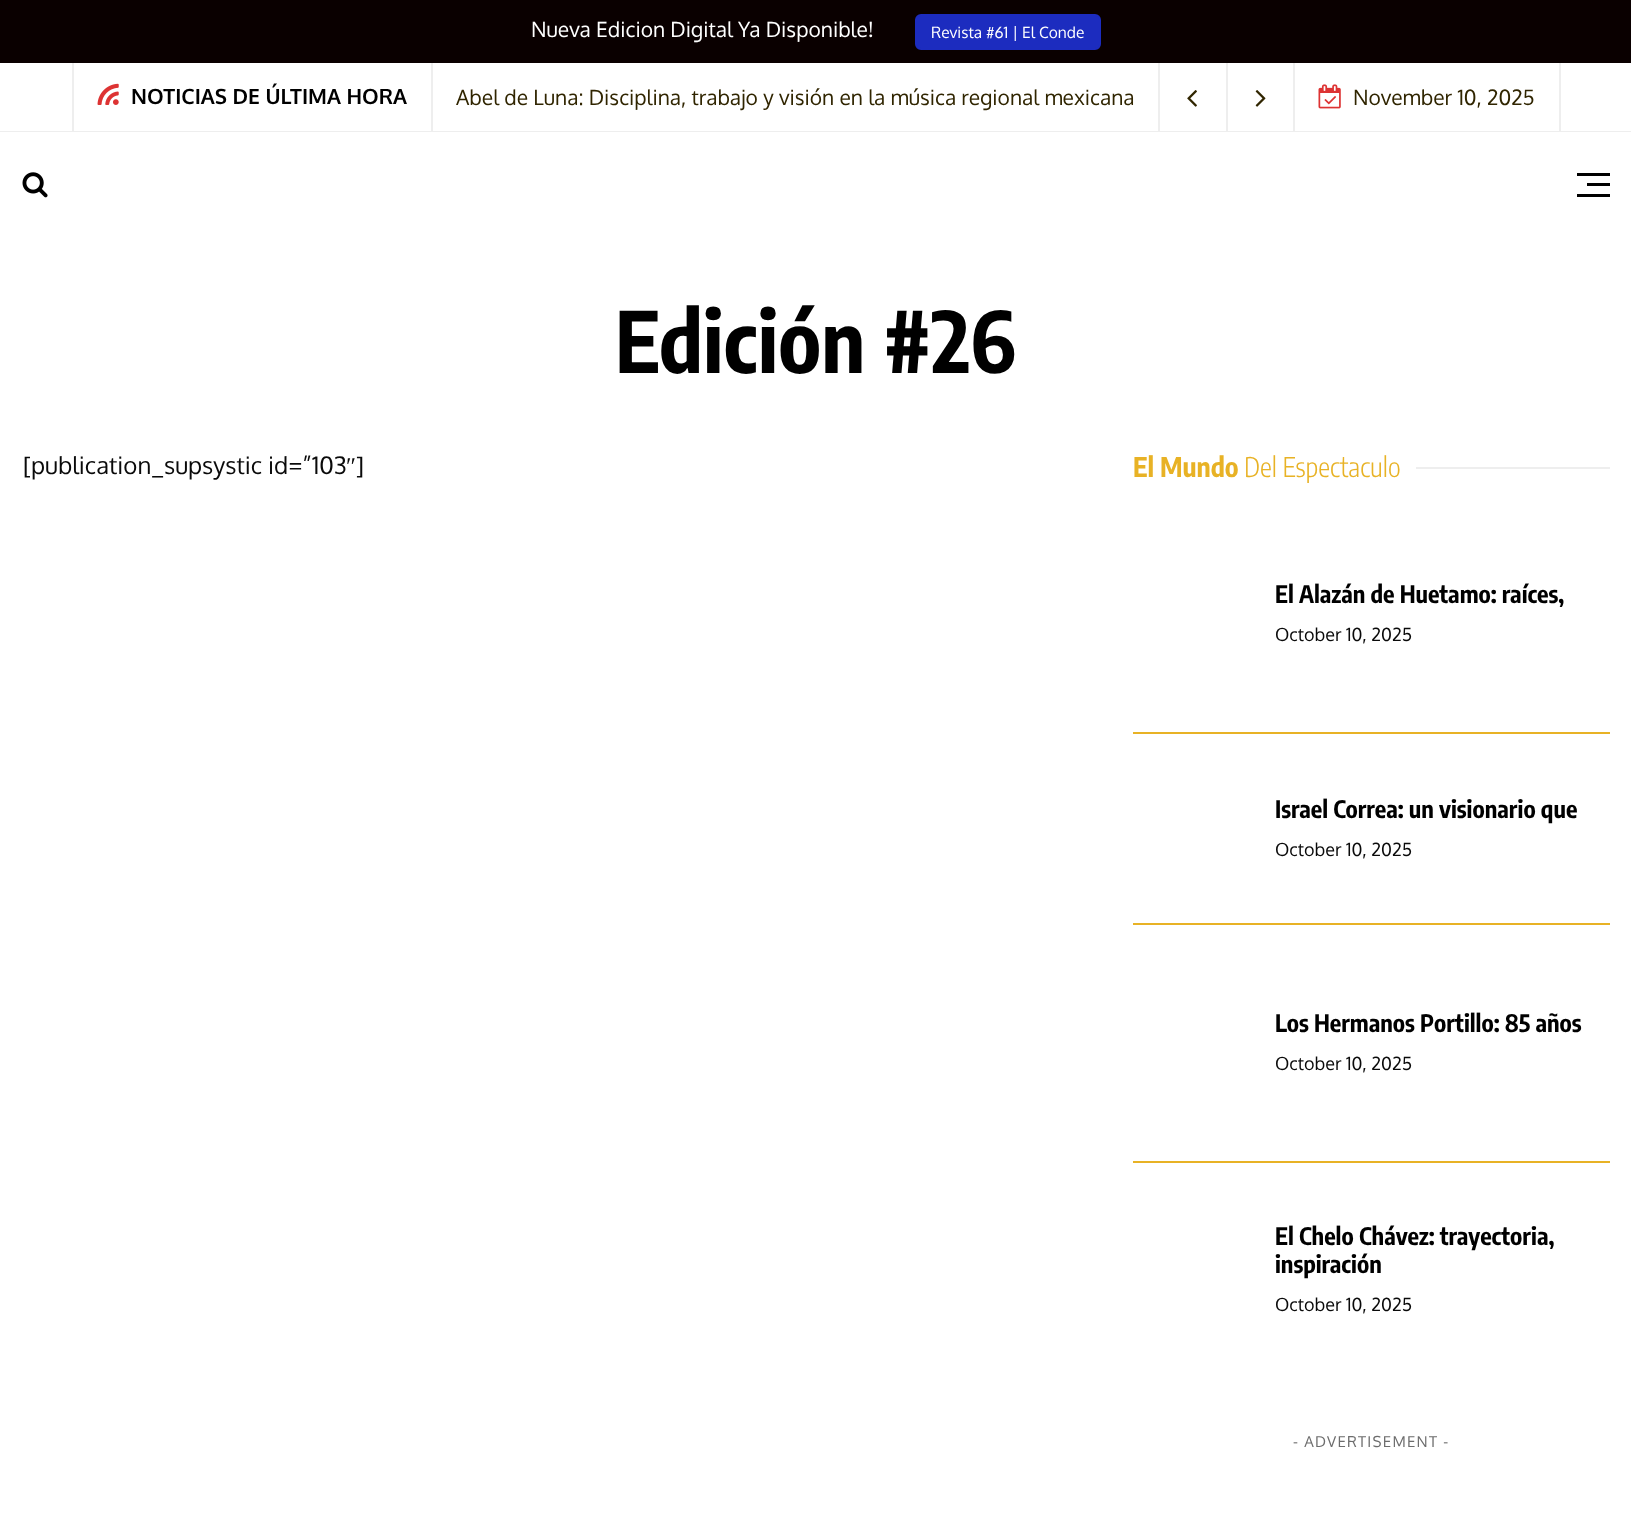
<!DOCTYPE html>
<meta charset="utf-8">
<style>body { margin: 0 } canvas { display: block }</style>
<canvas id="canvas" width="1631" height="1538"></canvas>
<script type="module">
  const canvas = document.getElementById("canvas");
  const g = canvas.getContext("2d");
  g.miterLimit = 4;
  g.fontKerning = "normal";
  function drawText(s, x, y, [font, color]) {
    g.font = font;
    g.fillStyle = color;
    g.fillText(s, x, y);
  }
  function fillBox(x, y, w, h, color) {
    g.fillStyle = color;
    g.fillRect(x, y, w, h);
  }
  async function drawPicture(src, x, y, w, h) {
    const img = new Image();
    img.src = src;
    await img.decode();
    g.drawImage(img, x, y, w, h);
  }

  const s1 = ["21px Oxygen", "#FFFFFF"];
  const s2 = ["15.5px Oxygen", "#FFFFFF"];
  const s3 = ["bold 21px Oxygen", "#000000"];
  const s4 = ["21px Oxygen", "#302500"];
  const s5 = ["bold 84px Encode Sans Condensed", "#000000"];
  const s6 = ["24px Oxygen", "#0A0A0A"];
  const s7 = ["24px Liberation Serif", "#0A0A0A"];
  const s8 = ["bold 27px Encode Sans Condensed", "#E8B225"];
  const s9 = ["300 27px Encode Sans Condensed", "#E8B225"];
  const s10 = ["bold 24px Encode Sans Condensed", "#000000"];
  const s11 = ["18px Oxygen", "#0A0A0A"];
  const s12 = ["15px Oxygen", "#6C6C6C"];

  fillBox(0, 0, 1631, 1538, "#FFFFFF");
  fillBox(0, 0, 1631, 63, "#0A0000");
  drawText("Nueva Edicion Digital Ya Disponible!", 531, 37, s1);
  g.fillStyle = "#1C2CBF";
  g.beginPath();
  g.roundRect(916, 15, 184, 34, 5);
  g.fill();
  g.strokeStyle = "#1C2CBF";
  g.lineWidth = 2;
  g.stroke();
  drawText("Revista #61 | El Conde", 931, 38, s2);
  fillBox(0, 131, 1631, 1, "#EEEEEE");
  fillBox(431, 63, 2, 68, "#EEEEEE");
  fillBox(72, 63, 2, 68, "#EEEEEE");
  await drawPicture("pic1.png", 97, 83, 22, 22);
  drawText("NOTICIAS DE ÚLTIMA HORA", 131, 104, s3);
  fillBox(1158, 63, 2, 68, "#EEEEEE");
  drawText("Abel de Luna: Disciplina, trabajo y visión en la música regional mexicana", 456, 105, s4);
  fillBox(1226, 63, 2, 68, "#EEEEEE");
  await drawPicture("pic2.png", 1187, 90, 10, 17);
  fillBox(1293, 63, 2, 68, "#EEEEEE");
  await drawPicture("pic3.png", 1255, 90, 11, 17);
  fillBox(1559, 63, 2, 68, "#EEEEEE");
  await drawPicture("pic4.png", 1318, 84, 23, 25);
  drawText("November 10, 2025", 1353, 105, s4);
  await drawPicture("pic5.png", 22, 172, 26, 26);
  fillBox(1587, 183, 23, 3, "#000000");
  fillBox(1577, 173, 33, 3, "#000000");
  fillBox(1577, 194, 33, 3, "#000000");
  drawText("Edición #26", 615, 373, s5);
  drawText("[publication_supsystic id=”103", 23, 474, s6);
  drawText("″", 346, 474, s7);
  drawText("]", 356, 474, s6);
  drawText("El Mundo", 1133, 477, s8);
  drawText("Del Espectaculo", 1244, 477, s9);
  fillBox(1416, 467, 194, 2, "#EEEEEE");
  fillBox(1133, 732, 477, 2, "#E8B225");
  drawText("El Alazán de Huetamo: raíces,", 1275, 603, s10);
  drawText("October 10, 2025", 1275, 641, s11);
  fillBox(1133, 923, 477, 2, "#E8B225");
  drawText("Israel Correa: un visionario que", 1275, 818, s10);
  drawText("October 10, 2025", 1275, 856, s11);
  fillBox(1133, 1161, 477, 2, "#E8B225");
  drawText("Los Hermanos Portillo: 85 años", 1275, 1032, s10);
  drawText("October 10, 2025", 1275, 1070, s11);
  drawText("El Chelo Chávez: trayectoria,", 1275, 1245, s10);
  drawText("inspiración", 1275, 1273, s10);
  drawText("October 10, 2025", 1275, 1311, s11);
  g.letterSpacing = "1.25px";
  drawText("- ADVERTISEMENT -", 1293, 1447, s12);
</script>
